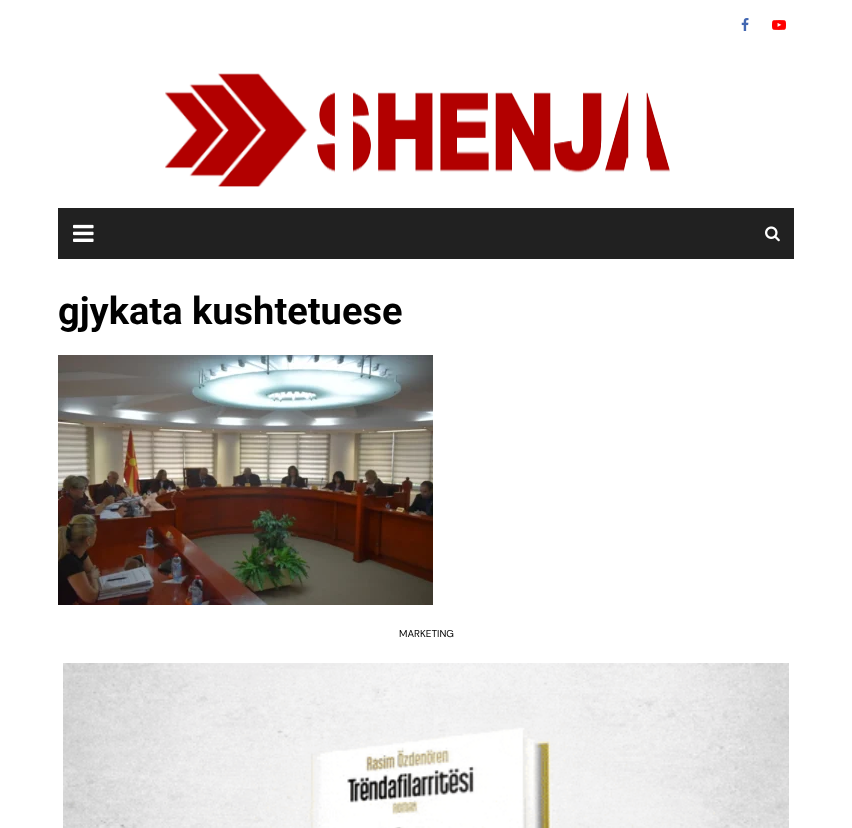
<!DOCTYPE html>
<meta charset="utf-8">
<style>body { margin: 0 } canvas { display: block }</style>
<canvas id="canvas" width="852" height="828"></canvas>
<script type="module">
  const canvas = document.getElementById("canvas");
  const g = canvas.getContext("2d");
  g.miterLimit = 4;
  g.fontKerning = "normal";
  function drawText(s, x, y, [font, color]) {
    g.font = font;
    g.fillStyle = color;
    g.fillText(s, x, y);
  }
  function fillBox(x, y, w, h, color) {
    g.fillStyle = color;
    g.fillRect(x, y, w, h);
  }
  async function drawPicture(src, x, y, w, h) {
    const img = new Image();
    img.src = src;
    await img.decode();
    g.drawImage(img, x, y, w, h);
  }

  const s1 = ["bold 38px Roboto", "#010101"];
  const s2 = ["10px DM Sans", "#010101"];

  fillBox(0, 0, 852, 828, "#FFFFFF");
  await drawPicture("pic1.png", 741, 18, 8, 13);
  await drawPicture("pic2.png", 772, 20, 14, 10);
  await drawPicture("pic3.png", 165, 73, 505, 114);
  fillBox(58, 208, 736, 51, "#212121");
  await drawPicture("pic4.png", 73, 224, 21, 18);
  await drawPicture("pic5.png", 765, 226, 15, 16);
  drawText("gjykata kushtetuese", 58, 324, s1);
  await drawPicture("pic6.png", 58, 355, 375, 250);
  drawText("MARKETING", 399, 637, s2);
  await drawPicture("pic7.png", 63, 663, 726, 165);
</script>
